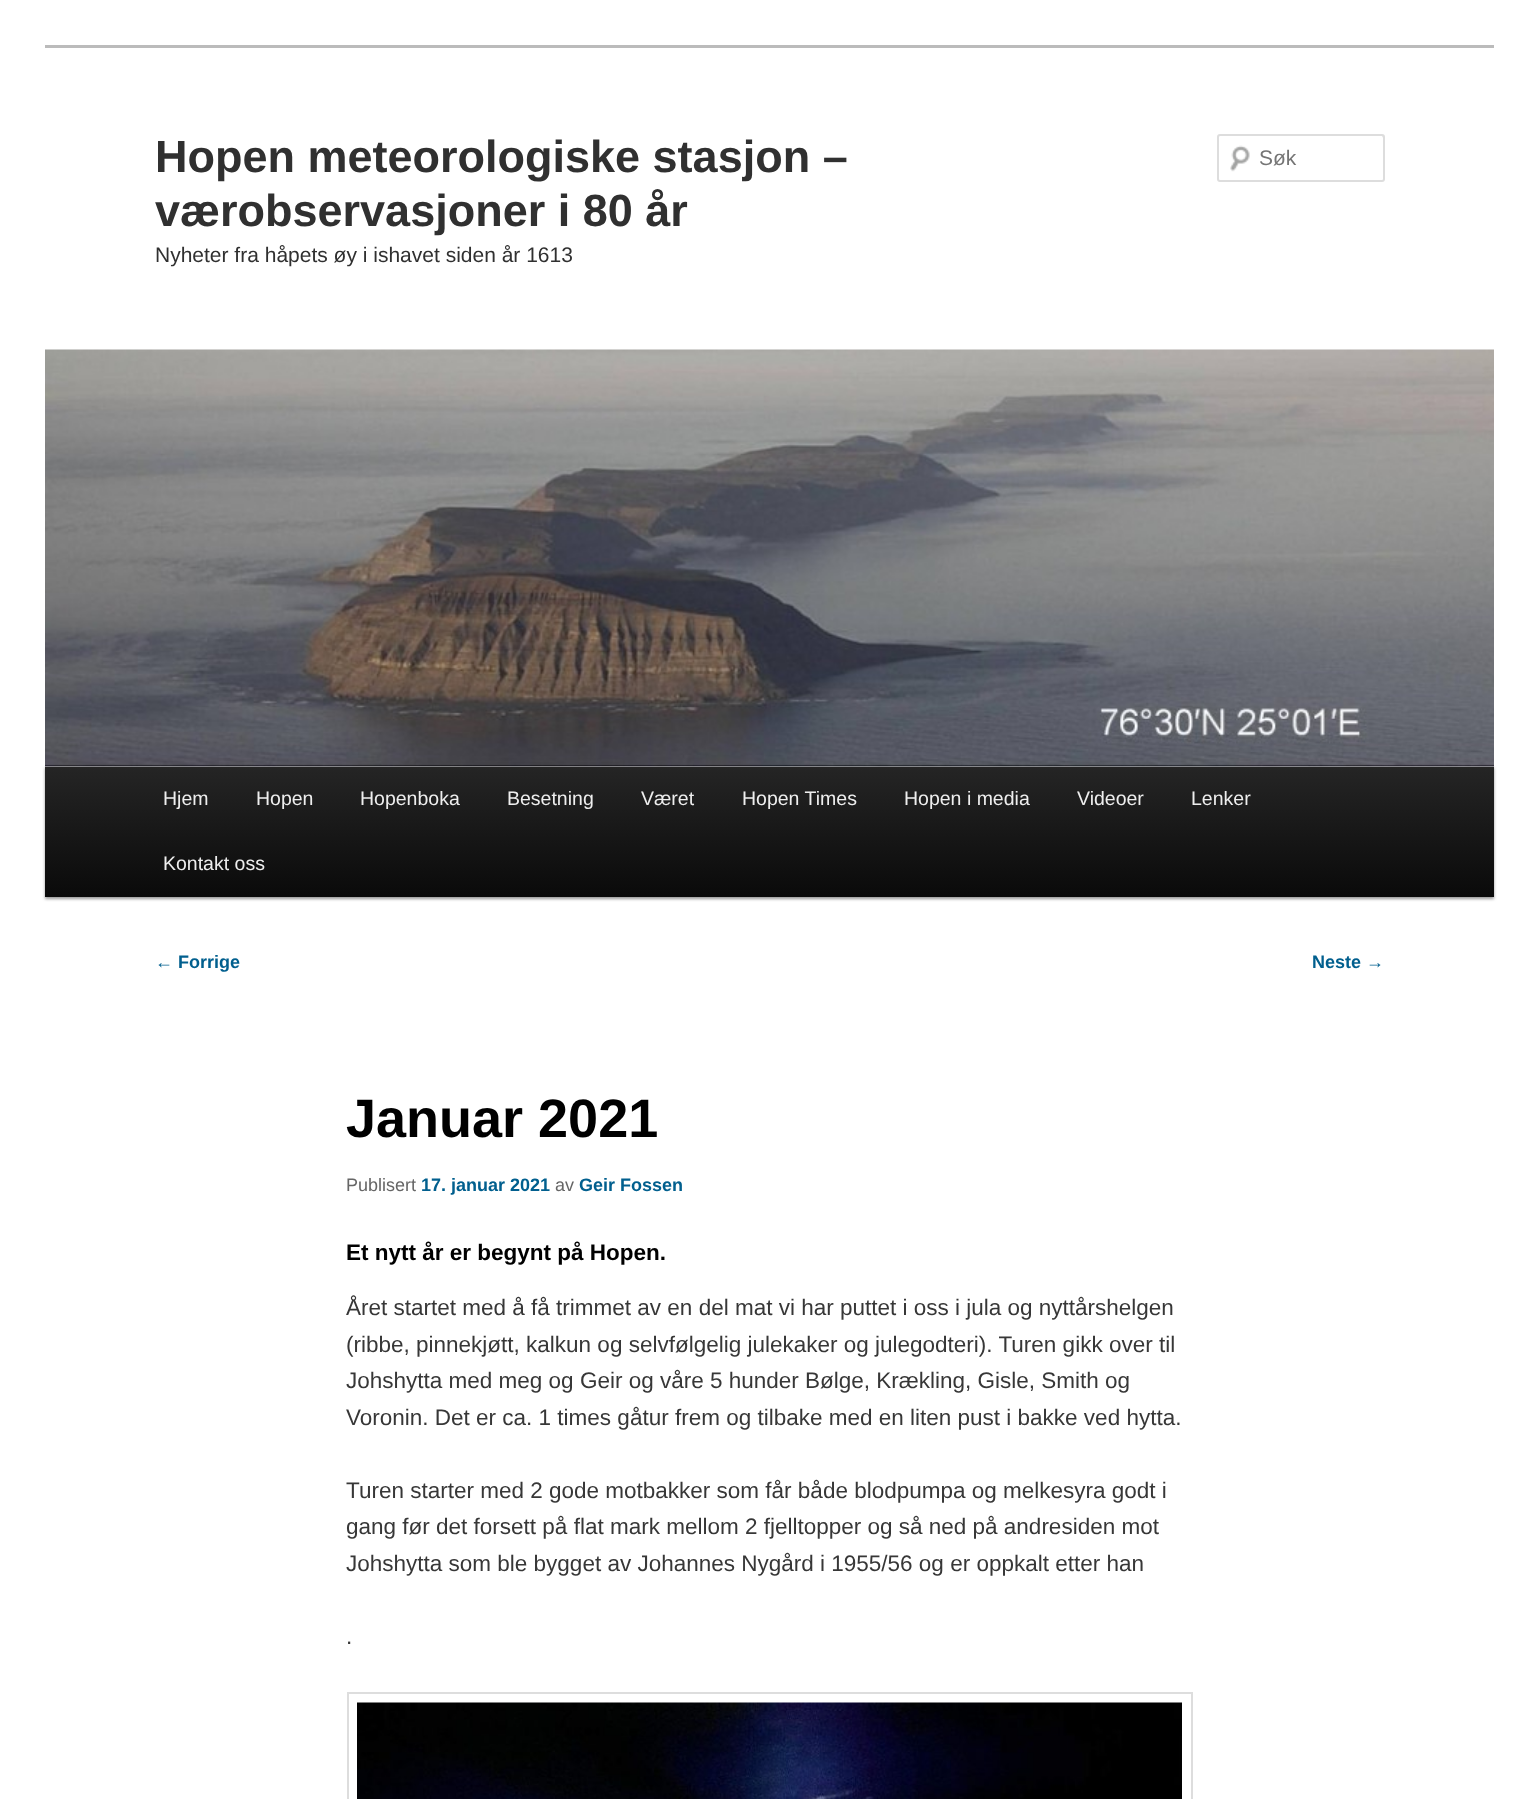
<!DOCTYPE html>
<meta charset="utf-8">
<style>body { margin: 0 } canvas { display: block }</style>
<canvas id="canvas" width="1538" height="1799"></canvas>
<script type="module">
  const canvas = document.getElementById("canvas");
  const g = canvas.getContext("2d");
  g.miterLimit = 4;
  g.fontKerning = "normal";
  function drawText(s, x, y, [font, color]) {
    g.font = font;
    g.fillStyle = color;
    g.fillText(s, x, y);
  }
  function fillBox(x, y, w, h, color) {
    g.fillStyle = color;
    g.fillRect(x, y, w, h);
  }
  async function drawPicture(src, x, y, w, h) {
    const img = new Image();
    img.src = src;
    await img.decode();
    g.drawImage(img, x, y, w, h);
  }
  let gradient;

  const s1 = ["bold 45px Liberation Sans", "#303030"];
  const s2 = ["21px Liberation Sans", "#303030"];
  const s3 = ["21px Liberation Sans", "#757575"];
  const s4 = ["19.5px Liberation Sans", "#EEEEEE"];
  const s5 = ["18px Liberation Sans", "#015F8E"];
  const s6 = ["bold 18px Liberation Sans", "#015F8E"];
  const s7 = ["bold 54px Liberation Sans", "#000000"];
  const s8 = ["18px Liberation Sans", "#666666"];
  const s9 = ["bold 22.5px Liberation Sans", "#000000"];
  const s10 = ["22.5px Liberation Sans", "#373737"];

  fillBox(0, 0, 1538, 1799, "#FFFFFF");
  fillBox(45, 45, 1449, 3, "#BBBBBB");
  drawText("Hopen meteorologiske stasjon –", 155, 172, s1);
  drawText("værobservasjoner i 80 år", 155, 226, s1);
  drawText("Nyheter fra håpets øy i ishavet siden år 1613", 155, 262, s2);
  await drawPicture("pic1.png", 1230, 145, 20, 27);
  g.fillStyle = "#E6E6E6";
  g.beginPath();
  g.moveTo(1220, 136);
  g.lineTo(1382, 136);
  g.lineTo(1383, 138);
  g.lineTo(1383, 136);
  g.bezierCurveTo(1383, 136, 1382, 135, 1382, 135);
  g.lineTo(1220, 135);
  g.bezierCurveTo(1219, 135, 1218, 136, 1218, 136);
  g.lineTo(1218, 138);
  g.bezierCurveTo(1218, 137, 1219, 136, 1220, 136);
  g.closePath();
  g.fill();
  g.beginPath();
  g.roundRect(1218, 135, 166, 46, 2);
  g.strokeStyle = "#DDDDDD";
  g.lineWidth = 2;
  g.stroke();
  drawText("Søk", 1259, 165, s3);
  g.fillStyle = "rgba(0, 0, 0, 0.4)";
  g.filter = "blur(1.5px)";
  g.beginPath();
  g.rect(45, 768, 1449, 131);
  g.fill();
  g.filter = "none";
  await drawPicture("pic2.png", 45, 349, 1449, 418);
  gradient = g.createLinearGradient(770, 766, 770, 897);
  gradient.addColorStop(0, "#252525");
  gradient.addColorStop(1, "#0A0A0A");
  g.fillStyle = gradient;
  g.fillRect(45, 767, 1449, 130);
  drawText("Hjem", 163, 805, s4);
  drawText("Hopen", 256, 805, s4);
  drawText("Hopenboka", 360, 805, s4);
  drawText("Besetning", 507, 805, s4);
  drawText("Været", 641, 805, s4);
  drawText("Hopen Times", 742, 805, s4);
  drawText("Hopen i media", 904, 805, s4);
  drawText("Videoer", 1077, 805, s4);
  drawText("Lenker", 1191, 805, s4);
  drawText("Kontakt oss", 163, 870, s4);
  drawText("←", 155, 968, s5);
  drawText("Forrige", 178, 968, s6);
  drawText("Neste", 1312, 968, s6);
  drawText("→", 1366, 968, s5);
  drawText("Januar 2021", 346, 1137, s7);
  drawText("Publisert", 346, 1191, s8);
  drawText("17. januar 2021", 421, 1191, s6);
  drawText("av", 555, 1191, s8);
  drawText("Geir Fossen", 579, 1191, s6);
  drawText("Et nytt år er begynt på Hopen.", 346, 1260, s9);
  drawText("Året startet med å få trimmet av en del mat vi har puttet i oss i jula og nyttårshelgen", 346, 1315, s10);
  drawText("(ribbe, pinnekjøtt, kalkun og selvfølgelig julekaker og julegodteri). Turen gikk over til", 346, 1352, s10);
  drawText("Johshytta med meg og Geir og våre 5 hunder Bølge, Krækling, Gisle, Smith og", 346, 1388, s10);
  drawText("Voronin. Det er ca. 1 times gåtur frem og tilbake med en liten pust i bakke ved hytta.", 346, 1425, s10);
  drawText("Turen starter med 2 gode motbakker som får både blodpumpa og melkesyra godt i", 346, 1498, s10);
  drawText("gang før det forsett på flat mark mellom 2 fjelltopper og så ned på andresiden mot", 346, 1534, s10);
  drawText("Johshytta som ble bygget av Johannes Nygård i 1955/56 og er oppkalt etter han", 346, 1571, s10);
  drawText(".", 346, 1644, s10);
  g.strokeRect(348, 1693, 844, 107);
  await drawPicture("pic3.png", 357, 1702, 825, 97);
</script>
